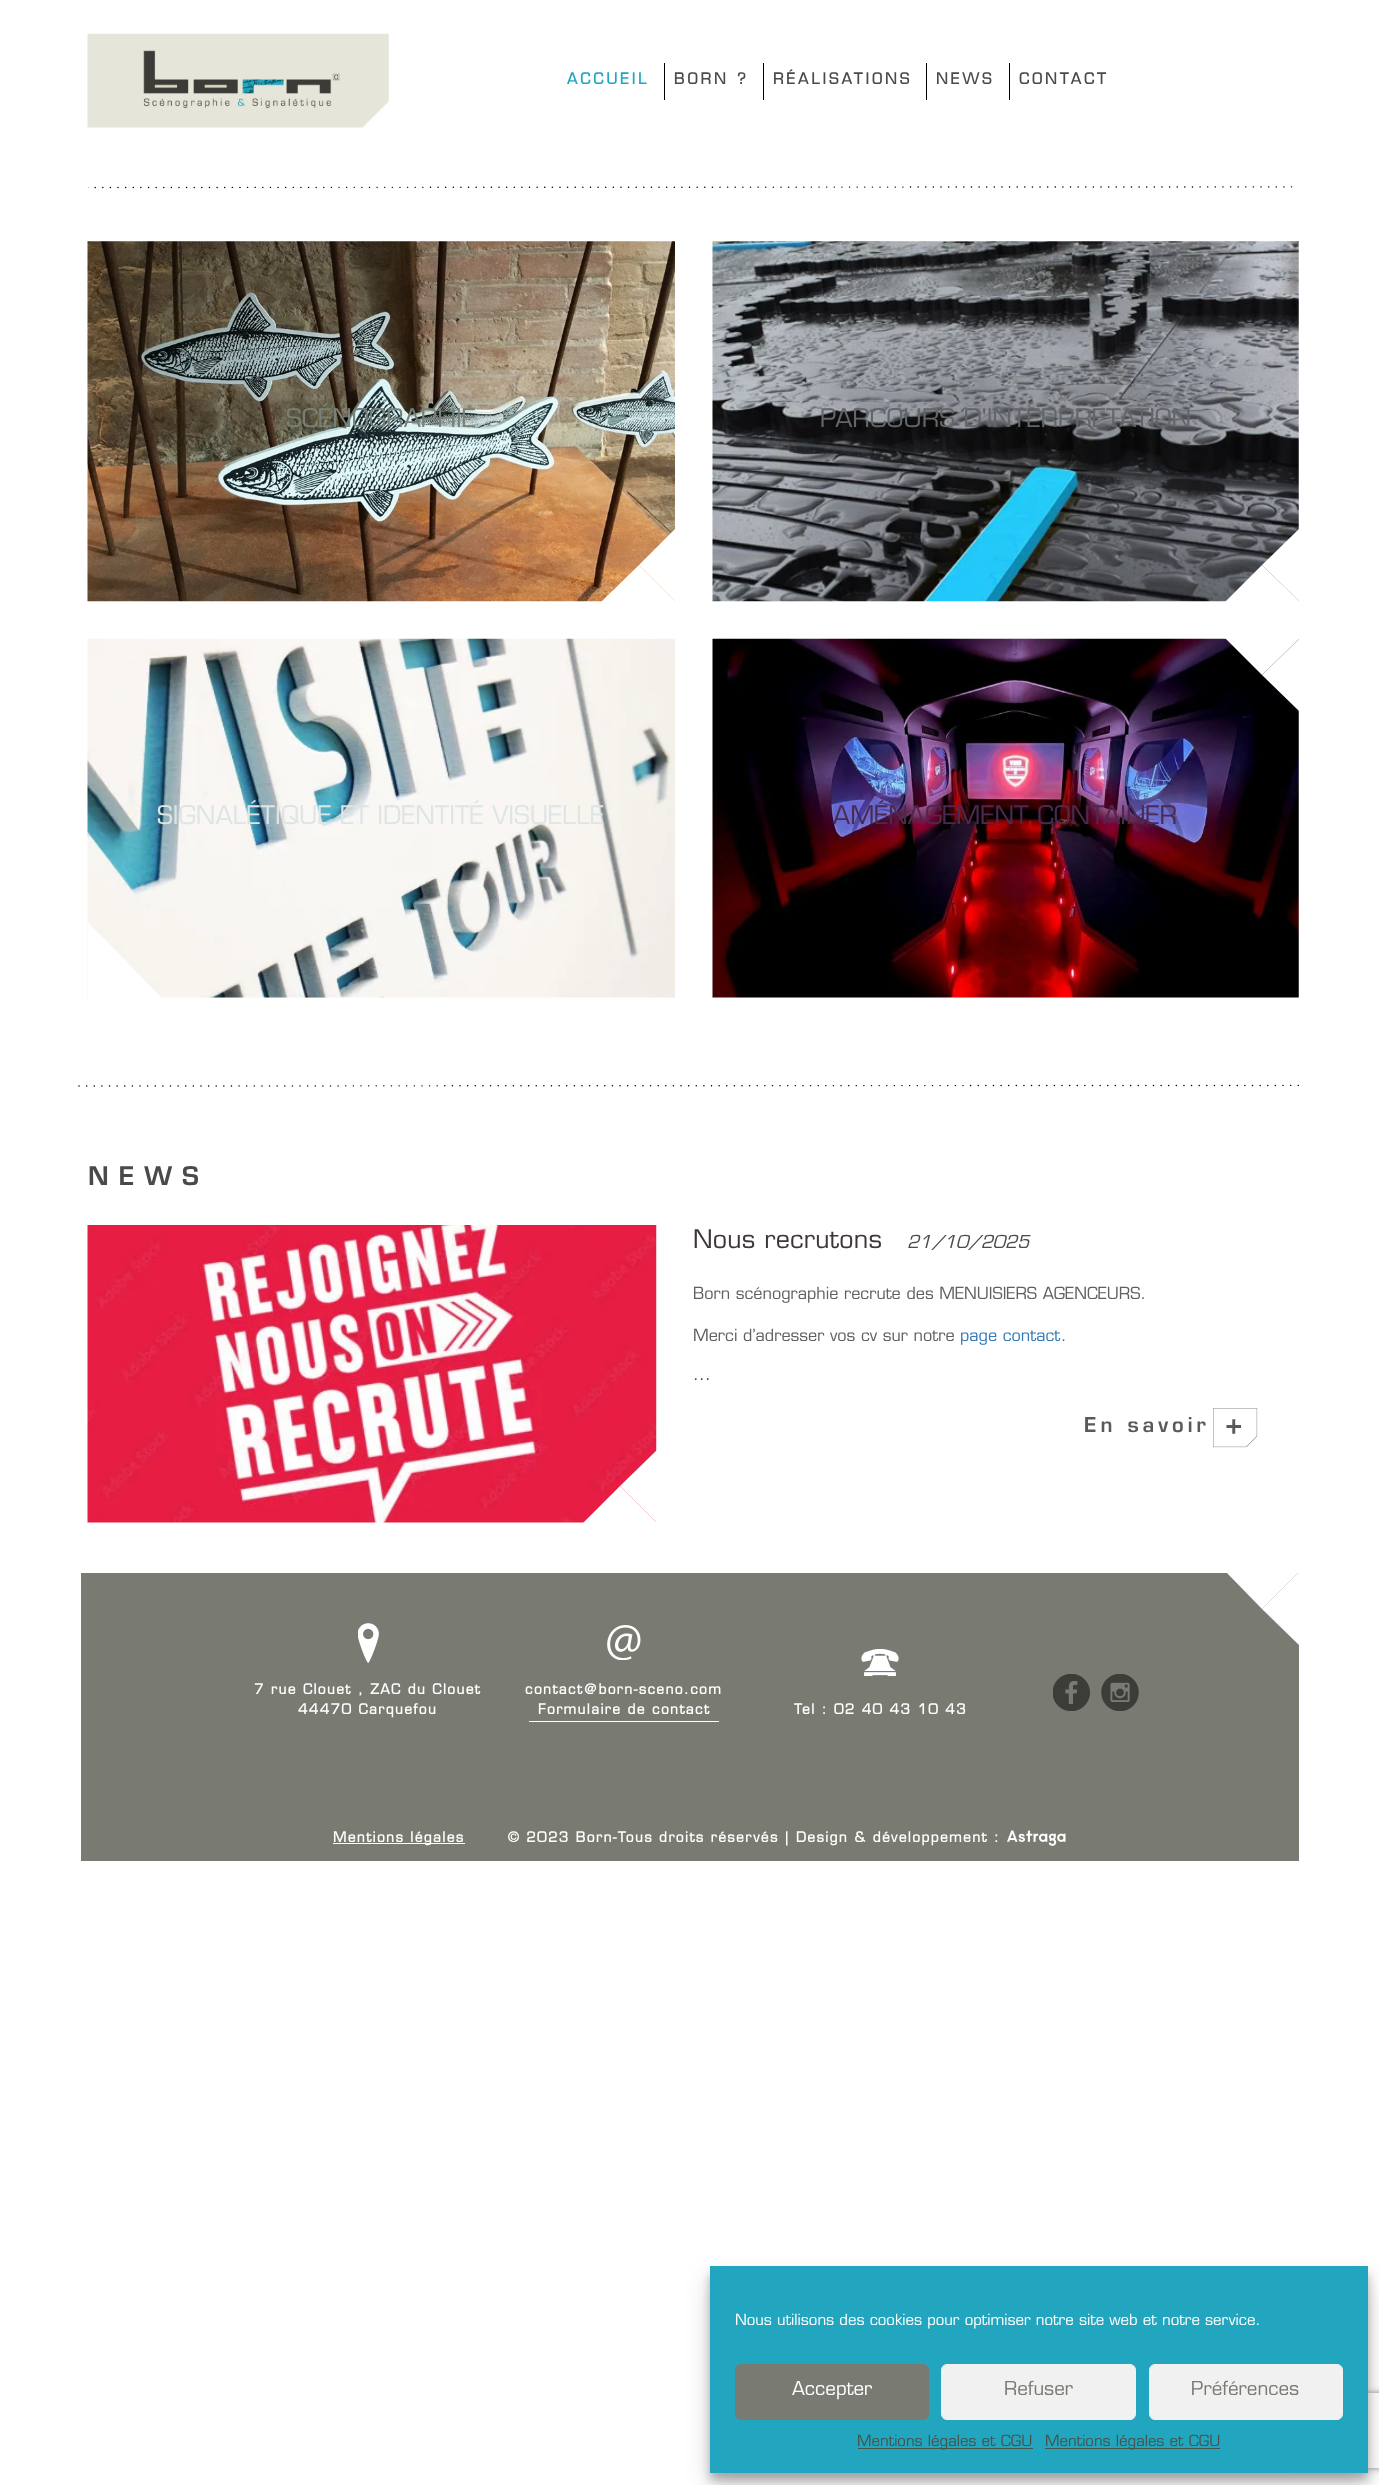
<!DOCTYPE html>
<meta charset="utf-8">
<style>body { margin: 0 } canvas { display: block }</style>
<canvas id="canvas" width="1379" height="2485"></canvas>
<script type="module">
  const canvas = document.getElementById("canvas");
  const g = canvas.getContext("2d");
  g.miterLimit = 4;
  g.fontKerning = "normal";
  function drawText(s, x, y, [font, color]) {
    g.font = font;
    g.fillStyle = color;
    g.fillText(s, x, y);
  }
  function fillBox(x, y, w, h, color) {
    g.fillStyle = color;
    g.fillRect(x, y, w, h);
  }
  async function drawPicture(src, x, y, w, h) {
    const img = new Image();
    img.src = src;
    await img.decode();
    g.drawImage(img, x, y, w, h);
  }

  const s1 = ["bold 15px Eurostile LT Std", "#22A6BF"];
  const s2 = ["bold 15px Eurostile LT Std", "#4A4A4A"];
  const s3 = ["25px Eurostile LT Std", "#778079"];
  const s4 = ["25px Eurostile LT Std", "#636569"];
  const s5 = ["25px Eurostile LT Std", "#DDE5E5"];
  const s6 = ["25px Eurostile LT Std", "#4C2951"];
  const s7 = ["600 25px Eurostile LT Std", "#4A4A4A"];
  const s8 = ["25px Eurostile LT Std", "#3E3737"];
  const s9 = ["italic 17.5px Eurostile LT Std", "#4A4A4A"];
  const s10 = ["16.25px Eurostile LT Std", "#606060"];
  const s11 = ["16.25px Eurostile LT Std", "#337AB7"];
  const s12 = ["17.5px Eurostile LT Std", "#4A4A4A"];
  const s13 = ["600 20px Eurostile LT Std", "#5D5959"];
  const s14 = ["600 30px Eurostile LT Std", "#5D5959"];
  const s15 = ["bold 13.75px Eurostile LT Std", "#FFFFFF"];
  const s16 = ["15px Eurostile LT Std", "#FFFFFF"];
  const s17 = ["18.75px Eurostile LT Std", "#FFFFFF"];
  const s18 = ["18.75px Eurostile LT Std", "#797A72"];
  const s19 = ["15px Eurostile LT Std", "#45544D"];

  fillBox(0, 0, 1379, 2485, "#FFFFFF");
  await drawPicture("pic1.png", 87, 33, 302, 95);
  g.letterSpacing = "3px";
  drawText("ACCUEIL", 567, 84, s1);
  fillBox(664, 63, 1, 37, "#000000");
  drawText("BORN ?", 674, 84, s2);
  fillBox(763, 63, 1, 37, "#000000");
  drawText("RÉALISATIONS", 773, 84, s2);
  fillBox(926, 63, 1, 37, "#000000");
  drawText("NEWS", 936, 84, s2);
  fillBox(1009, 63, 1, 37, "#000000");
  drawText("CONTACT", 1019, 84, s2);
  g.save();
  g.beginPath();
  g.rect(88, 161, 1205, 28);
  g.clip();
  g.beginPath();
  g.moveTo(87.5, 187.5);
  g.lineTo(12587.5, 181);
  g.strokeStyle = "#000000";
  g.lineWidth = 1.4;
  g.lineCap = "round";
  g.setLineDash([0.12, 7.5]);
  g.stroke();
  g.restore();
  await drawPicture("pic2.png", 87, 241, 588, 361);
  g.letterSpacing = "0px";
  drawText("SCÉNOGRAPHIE", 286, 427, s3);
  g.fillStyle = "#FFFFFF";
  g.beginPath();
  g.moveTo(676, 528);
  g.lineTo(676, 602);
  g.lineTo(639, 565);
  g.closePath();
  g.fill();
  g.beginPath();
  g.moveTo(676, 602);
  g.lineTo(601, 602);
  g.lineTo(639, 565);
  g.closePath();
  g.fill();
  await drawPicture("pic3.png", 712, 241, 587, 361);
  drawText("PARCOURS D'INTERPRÉTATION", 820, 427, s4);
  g.fillStyle = "#FFFFFF";
  g.beginPath();
  g.moveTo(1300, 528);
  g.lineTo(1300, 602);
  g.lineTo(1262, 565);
  g.closePath();
  g.fill();
  g.beginPath();
  g.moveTo(1300, 602);
  g.lineTo(1225, 602);
  g.lineTo(1262, 565);
  g.closePath();
  g.fill();
  await drawPicture("pic4.png", 87, 638, 588, 360);
  drawText("SIGNALÉTIQUE ET IDENTITÉ VISUELLE", 157, 824, s5);
  g.fillStyle = "#FFFFFF";
  g.beginPath();
  g.moveTo(162, 998);
  g.lineTo(88, 998);
  g.lineTo(125, 960);
  g.closePath();
  g.fill();
  g.beginPath();
  g.moveTo(88, 998);
  g.lineTo(88, 922);
  g.lineTo(125, 960);
  g.closePath();
  g.fill();
  await drawPicture("pic5.png", 712, 638, 587, 360);
  g.beginPath();
  g.moveTo(1225, 638);
  g.lineTo(1300, 638);
  g.lineTo(1262, 675);
  g.closePath();
  g.fill();
  g.beginPath();
  g.moveTo(1300, 638);
  g.lineTo(1300, 712);
  g.lineTo(1262, 675);
  g.closePath();
  g.fill();
  drawText("AMÉNAGEMENT CONTAINER", 833, 824, s6);
  g.save();
  g.beginPath();
  g.rect(50, 1060, 1249, 28);
  g.clip();
  g.beginPath();
  g.moveTo(79, 1086);
  g.lineTo(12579, 1080);
  g.strokeStyle = "#000000";
  g.lineWidth = 1.4;
  g.lineCap = "round";
  g.setLineDash([0.12, 7.5]);
  g.stroke();
  g.restore();
  g.letterSpacing = "10px";
  drawText("NEWS", 88, 1185, s7);
  await drawPicture("pic6.png", 87, 1225, 570, 298);
  g.fillStyle = "#FFFFFF";
  g.beginPath();
  g.moveTo(658, 1449);
  g.lineTo(658, 1524);
  g.lineTo(620, 1486);
  g.closePath();
  g.fill();
  g.beginPath();
  g.moveTo(658, 1524);
  g.lineTo(582, 1524);
  g.lineTo(620, 1486);
  g.closePath();
  g.fill();
  g.letterSpacing = "0.25px";
  drawText("Nous recrutons", 693, 1248, s8);
  g.letterSpacing = "0px";
  drawText("21/10/2025", 907, 1248, s9);
  drawText("Born scénographie recrute des MENUISIERS AGENCEURS.", 693, 1299, s10);
  drawText("Merci d’adresser vos cv sur notre", 693, 1341, s10);
  drawText("page contact", 960, 1341, s11);
  drawText(".", 1061, 1341, s10);
  drawText("...", 693, 1380, s12);
  await drawPicture("pic7.png", 1213, 1408, 45, 40);
  g.letterSpacing = "4px";
  drawText("En savoir", 1084, 1432, s13);
  drawText("+", 1225, 1435, s14);
  fillBox(81, 1573, 1218, 288, "#797A72");
  g.fillStyle = "#FFFFFF";
  g.beginPath();
  g.moveTo(1225, 1571);
  g.lineTo(1300, 1571);
  g.lineTo(1262, 1609);
  g.closePath();
  g.fill();
  g.beginPath();
  g.moveTo(1300, 1571);
  g.lineTo(1300, 1646);
  g.lineTo(1262, 1609);
  g.closePath();
  g.fill();
  await drawPicture("pic8.png", 358, 1623, 21, 40);
  g.letterSpacing = "1.38px";
  drawText("7 rue Clouet , ZAC du Clouet", 254, 1694, s15);
  drawText("44470 Carquefou", 298, 1714, s15);
  await drawPicture("pic9.png", 607, 1625, 34, 35);
  drawText("contact@born-sceno.com", 525, 1694, s15);
  fillBox(529, 1721, 190, 1, "#FFFFFF");
  drawText("Formulaire de contact", 538, 1714, s15);
  await drawPicture("pic10.png", 861, 1649, 38, 27);
  drawText("Tel : 02 40 43 10 43", 794, 1714, s15);
  await drawPicture("pic11.png", 1053, 1674, 37, 37);
  await drawPicture("pic12.png", 1101, 1674, 38, 37);
  fillBox(333, 1843, 132, 1, "#FFFFFF");
  drawText("Mentions légales", 333, 1842, s15);
  drawText("© 2023 Born-Tous droits réservés | Design & développement :", 508, 1842, s15);
  await drawPicture("pic13.png", 1007, 1830, 59, 16);
  g.fillStyle = "rgba(0, 0, 0, 0.23)";
  g.filter = "blur(4px)";
  g.beginPath();
  g.rect(710, 2274, 658, 206);
  g.fill();
  g.filter = "none";
  g.fillStyle = "rgba(0, 0, 0, 0.19)";
  g.filter = "blur(12.5px)";
  g.beginPath();
  g.rect(710, 2279, 658, 206);
  g.fill();
  g.filter = "none";
  g.save();
  g.beginPath();
  g.moveTo(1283, 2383);
  g.lineTo(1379, 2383);
  g.lineTo(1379, 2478);
  g.lineTo(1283, 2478);
  g.closePath();
  g.moveTo(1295.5, 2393);
  g.lineTo(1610.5, 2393);
  g.bezierCurveTo(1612, 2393, 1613, 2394, 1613, 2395.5);
  g.lineTo(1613, 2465.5);
  g.bezierCurveTo(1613, 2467, 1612, 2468, 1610.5, 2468);
  g.lineTo(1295.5, 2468);
  g.bezierCurveTo(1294, 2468, 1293, 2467, 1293, 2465.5);
  g.lineTo(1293, 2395.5);
  g.bezierCurveTo(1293, 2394, 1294, 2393, 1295.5, 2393);
  g.closePath();
  g.clip("evenodd");
  g.fillStyle = "#808080";
  g.filter = "blur(3px)";
  g.beginPath();
  g.roundRect(1293, 2393, 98, 75, 2.5);
  g.fill();
  g.filter = "none";
  g.restore();
  fillBox(710, 2266, 658, 207, "#22A6BF");
  g.letterSpacing = "0px";
  drawText("Nous utilisons des cookies pour optimiser notre site web et notre service.", 735, 2325, s16);
  g.fillStyle = "#797A72";
  g.beginPath();
  g.roundRect(735.5, 2364.5, 193, 55, 5.5);
  g.fill();
  g.strokeStyle = "#797A72";
  g.stroke();
  drawText("Accepter", 792, 2395, s17);
  g.fillStyle = "#F1F1F1";
  g.beginPath();
  g.roundRect(941.5, 2364.5, 194, 55, 5.5);
  g.fill();
  g.strokeStyle = "#F1F1F1";
  g.stroke();
  drawText("Refuser", 1004, 2395, s18);
  g.fillStyle = "#F1F1F1";
  g.beginPath();
  g.roundRect(1149.5, 2364.5, 193, 55, 5.5);
  g.fill();
  g.stroke();
  drawText("Préférences", 1191, 2395, s18);
  fillBox(858, 2448, 175, 1, "#45544D");
  drawText("Mentions légales et CGU", 857, 2446, s19);
  fillBox(1045, 2448, 175, 1, "#45544D");
  drawText("Mentions légales et CGU", 1045, 2446, s19);
</script>
